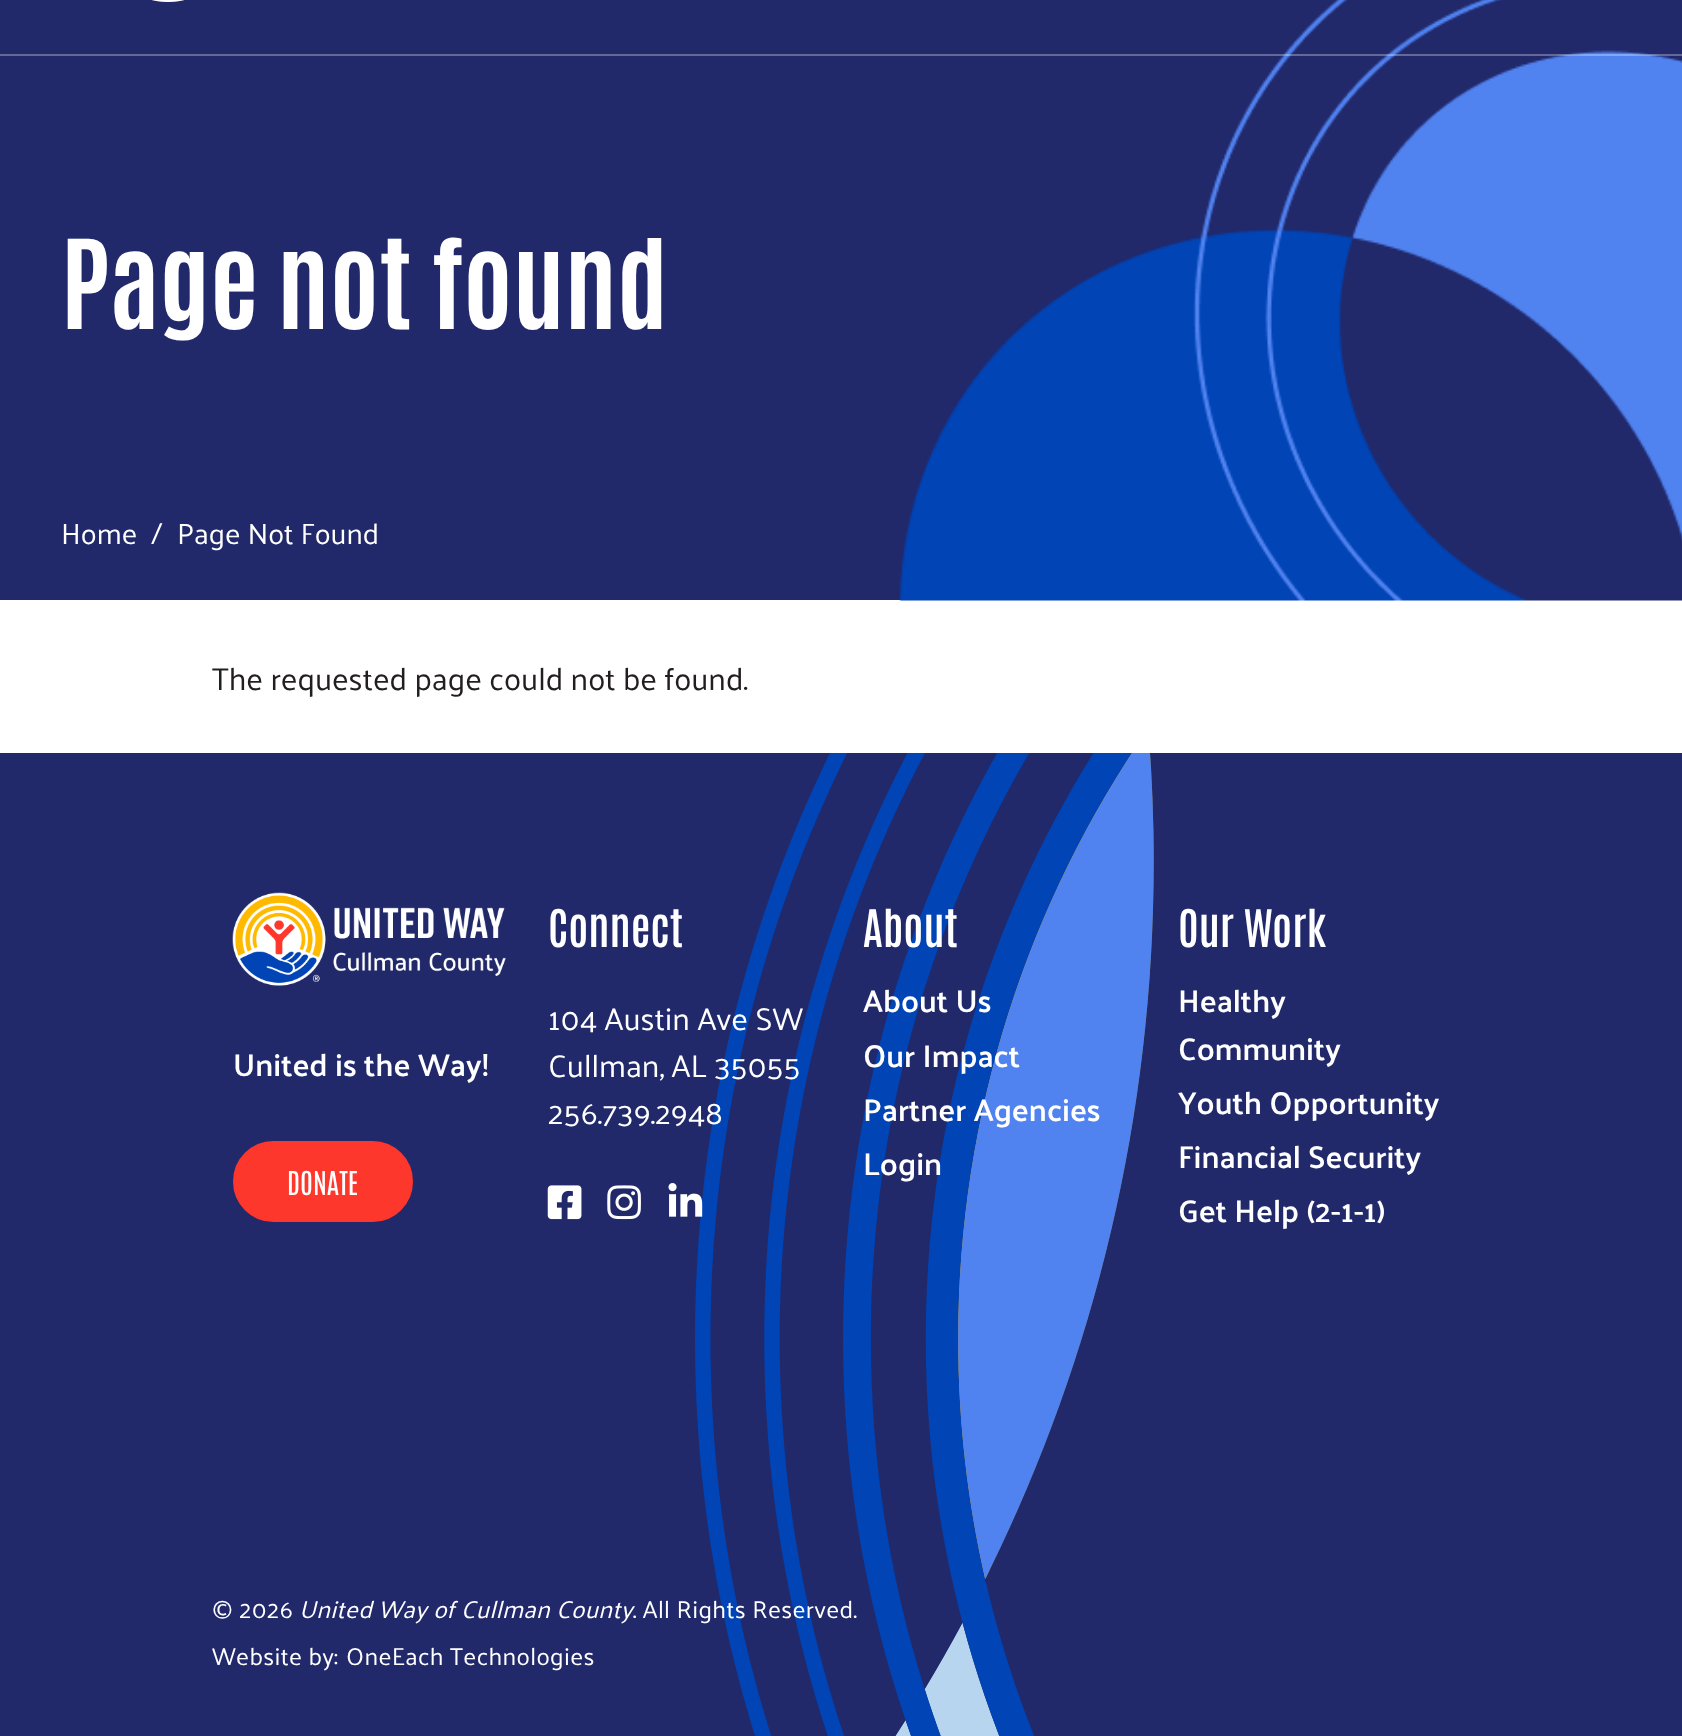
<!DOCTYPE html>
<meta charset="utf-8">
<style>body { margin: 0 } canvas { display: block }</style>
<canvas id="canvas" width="1682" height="1736"></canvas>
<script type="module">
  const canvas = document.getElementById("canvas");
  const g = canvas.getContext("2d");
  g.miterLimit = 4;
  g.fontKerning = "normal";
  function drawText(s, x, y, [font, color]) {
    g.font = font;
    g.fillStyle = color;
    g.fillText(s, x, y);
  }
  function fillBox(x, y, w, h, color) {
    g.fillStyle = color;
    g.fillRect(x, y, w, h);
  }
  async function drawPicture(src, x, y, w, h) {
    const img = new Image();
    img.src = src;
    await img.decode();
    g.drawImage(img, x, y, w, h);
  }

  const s1 = ["bold 105px Antonio", "#FFFFFF"];
  const s2 = ["29.25px Palanquin", "#FFFFFF"];
  const s3 = ["31.5px Palanquin", "#221E1F"];
  const s4 = ["600 31.5px Palanquin", "#FFFFFF"];
  const s5 = ["28px Antonio", "#FFFFFF"];
  const s6 = ["600 44px Antonio", "#FFFFFF"];
  const s7 = ["31.5px Palanquin", "#FFFFFF"];
  const s8 = ["24.5px Palanquin", "#FFFFFF"];
  const s9 = ["italic 24.5px Palanquin", "#FFFFFF"];

  fillBox(0, 0, 1682, 1736, "#FFFFFF");
  fillBox(0, 0, 1682, 600, "#21296B");
  await drawPicture("pic2.png", 899, 0, 783, 601);
  fillBox(0, 54, 1682, 2, "rgba(255, 255, 255, 0.3)");
  await drawPicture("pic1.png", 152, 0, 33, 2);
  drawText("Page not found", 61, 329, s1);
  drawText("Home", 61, 544, s2);
  drawText("/", 151, 544, s2);
  drawText("Page Not Found", 177, 544, s2);
  drawText("The requested page could not be found.", 212, 690, s3);
  fillBox(0, 753, 1682, 983, "#21296B");
  await drawPicture("pic3.png", 695, 753, 459, 983);
  await drawPicture("pic4.png", 232, 892, 274, 94);
  drawText("United is the Way!", 233, 1076, s4);
  g.fillStyle = "#FD372C";
  g.beginPath();
  g.roundRect(234, 1142, 178, 79, 39.5);
  g.fill();
  g.strokeStyle = "#FD372C";
  g.lineWidth = 2;
  g.stroke();
  drawText("DONATE", 287, 1195, s5);
  drawText("Connect", 548, 947, s6);
  drawText("104 Austin Ave SW", 548, 1030, s7);
  drawText("Cullman, AL 35055", 548, 1077, s7);
  drawText("256.739.2948", 548, 1124, s7);
  await drawPicture("pic5.png", 547, 1185, 35, 35);
  await drawPicture("pic6.png", 607, 1185, 34, 35);
  await drawPicture("pic7.png", 668, 1183, 35, 34);
  drawText("About", 863, 947, s6);
  drawText("About Us", 863, 1012, s4);
  drawText("Our Impact", 863, 1067, s4);
  drawText("Partner Agencies", 863, 1121, s4);
  drawText("Login", 863, 1175, s4);
  drawText("Our Work", 1178, 947, s6);
  drawText("Healthy", 1178, 1012, s4);
  drawText("Community", 1178, 1060, s4);
  drawText("Youth Opportunity", 1178, 1114, s4);
  drawText("Financial Security", 1178, 1168, s4);
  drawText("Get Help (2-1-1)", 1178, 1222, s4);
  g.letterSpacing = "0.35px";
  drawText("© 2026", 212, 1618, s8);
  drawText("United Way of Cullman County", 299, 1618, s9);
  drawText(". All Rights Reserved.", 633, 1618, s8);
  drawText("Website by:", 212, 1665, s8);
  drawText("OneEach Technologies", 346, 1665, s8);
</script>
